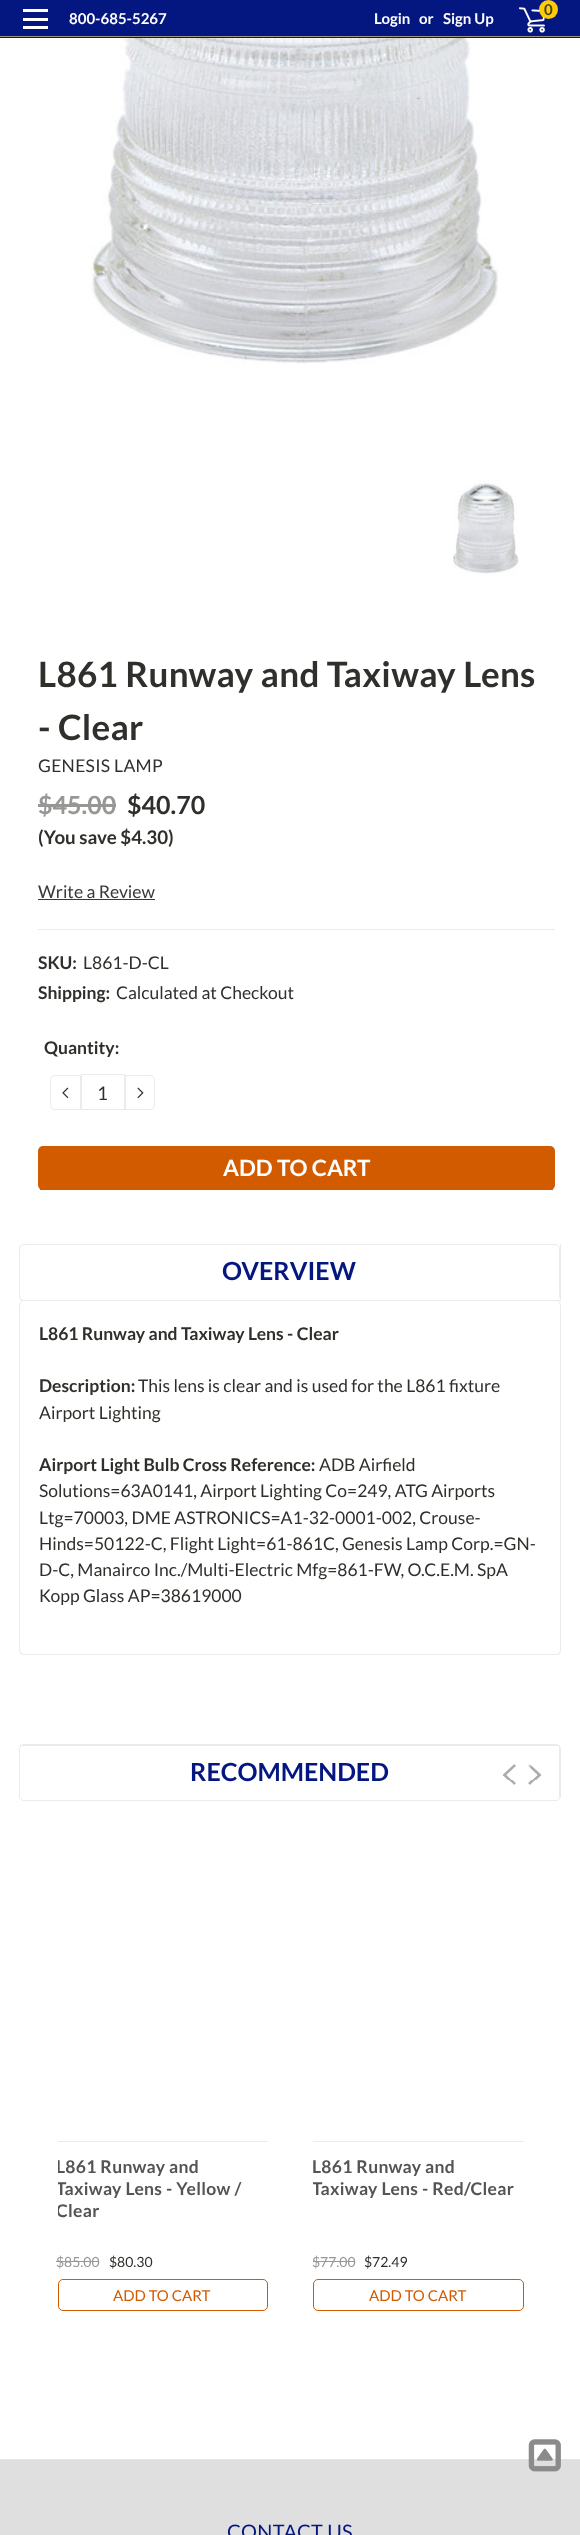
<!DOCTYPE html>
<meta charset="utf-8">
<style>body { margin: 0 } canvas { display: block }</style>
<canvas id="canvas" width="580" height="2535"></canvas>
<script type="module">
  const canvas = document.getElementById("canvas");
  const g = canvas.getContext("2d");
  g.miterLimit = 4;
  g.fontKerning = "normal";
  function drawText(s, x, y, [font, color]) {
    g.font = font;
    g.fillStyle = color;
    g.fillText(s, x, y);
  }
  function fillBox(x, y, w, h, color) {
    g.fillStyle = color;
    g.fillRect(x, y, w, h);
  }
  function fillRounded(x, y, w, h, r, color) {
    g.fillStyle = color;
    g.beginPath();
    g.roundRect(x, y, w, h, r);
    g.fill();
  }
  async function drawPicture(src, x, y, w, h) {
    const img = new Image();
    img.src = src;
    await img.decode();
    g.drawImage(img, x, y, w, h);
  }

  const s1 = ["bold 15px Lato", "#FFFFFF"];
  const s2 = ["bold 15px Lato", "#3D451D"];
  const s3 = ["bold 35px Lato", "#2F2F2B"];
  const s4 = ["17.5px Lato", "#2F2F2B"];
  const s5 = ["bold 25px Lato", "#979795"];
  const s6 = ["bold 25px Lato", "#2F2F2B"];
  const s7 = ["bold 18.75px Lato", "#2F2F2B"];
  const s8 = ["17.5px Lato", "#393939"];
  const s9 = ["bold 17.5px Lato", "#2F2F2B"];
  const s10 = ["18.75px Lato", "#2F2F2B"];
  const s11 = ["bold 22.5px Lato", "#FFFFFF"];
  const s12 = ["bold 25px Lato", "#041680"];
  const s13 = ["bold 17.5px Lato", "#545454"];
  const s14 = ["14px Lato", "#979795"];
  const s15 = ["14px Lato", "#2F2F2B"];
  const s16 = ["15px Lato", "#D25B00"];
  const s17 = ["20px Lato", "#041680"];

  fillBox(0, 0, 580, 2535, "#FFFFFF");
  fillBox(0, 0, 580, 38, "#041680");
  fillBox(0, 36, 580, 1, "#9A977E");
  fillBox(23, 18, 25, 3, "#FFFFFF");
  fillBox(23, 9, 25, 3, "#FFFFFF");
  fillBox(23, 26, 25, 3, "#FFFFFF");
  drawText("800-685-5267", 69, 24, s1);
  await drawPicture("pic1.png", 518, 7, 27, 26);
  g.fillStyle = "#FFCB07";
  g.beginPath();
  g.arc(548.5, 9.5, 9.5, 0, Math.PI * 2);
  g.fill();
  drawText("0", 544, 15, s2);
  drawText("Login", 374, 24, s1);
  drawText("or", 419, 24, s1);
  drawText("Sign Up", 443, 24, s1);
  await drawPicture("pic2.png", 90, 38, 408, 327);
  await drawPicture("pic3.png", 453, 480, 66, 94);
  g.letterSpacing = "0.3px";
  drawText("L861 Runway and Taxiway Lens", 38, 687, s3);
  drawText("- Clear", 38, 740, s3);
  drawText("GENESIS LAMP", 38, 772, s4);
  g.letterSpacing = "0px";
  drawText("$45.00", 38, 814, s5);
  fillBox(38, 804, 78, 3, "#979795");
  drawText("$40.70", 127, 814, s6);
  drawText("(You save $4.30)", 38, 844, s7);
  drawText("Write a Review", 38, 898, s8);
  fillBox(38, 899, 117, 1, "#393939");
  fillBox(38, 929, 517, 1, "#EBEBEB");
  drawText("SKU:", 38, 969, s9);
  drawText("L861-D-CL", 83, 969, s4);
  drawText("Shipping:", 38, 999, s9);
  drawText("Calculated at Checkout", 116, 999, s4);
  drawText("Quantity:", 44, 1054, s9);
  g.beginPath();
  g.roundRect(50.5, 1075.5, 30, 34, [4.5, 0, 0, 4.5]);
  g.strokeStyle = "#EBEBEB";
  g.stroke();
  await drawPicture("pic4.png", 62, 1087, 7, 12);
  g.strokeRect(81.5, 1074.5, 43, 35);
  drawText("1", 97, 1100, s10);
  g.beginPath();
  g.roundRect(125.5, 1075.5, 29, 34, [0, 4.5, 4.5, 0]);
  g.stroke();
  await drawPicture("pic5.png", 137, 1087, 7, 12);
  fillRounded(38, 1146, 517, 44, 5, "#D25B00");
  fillBox(40, 1189, 513, 1, "#D25B00");
  drawText("ADD TO CART", 223, 1176, s11);
  g.fillStyle = "#EBEBEB";
  g.beginPath();
  g.moveTo(24, 1244);
  g.lineTo(561, 1244);
  g.lineTo(561, 1301);
  g.lineTo(24, 1301);
  g.bezierCurveTo(21, 1301, 19, 1299, 19, 1296);
  g.lineTo(19, 1249);
  g.bezierCurveTo(19, 1246, 21, 1244, 24, 1244);
  g.closePath();
  g.moveTo(24, 1244);
  g.lineTo(560, 1244);
  g.lineTo(560, 1300);
  g.lineTo(24, 1300);
  g.bezierCurveTo(22, 1300, 20, 1298, 20, 1296);
  g.lineTo(20, 1249);
  g.bezierCurveTo(20, 1246, 22, 1244, 24, 1244);
  g.closePath();
  g.fill("evenodd");
  g.beginPath();
  g.moveTo(25, 1244);
  g.lineTo(555, 1244);
  g.bezierCurveTo(556, 1244, 558, 1244, 558, 1245);
  g.lineTo(558, 1246);
  g.bezierCurveTo(557, 1245, 556, 1245, 555, 1245);
  g.lineTo(25, 1245);
  g.bezierCurveTo(22, 1245, 20, 1247, 20, 1249);
  g.bezierCurveTo(20, 1246, 22, 1244, 25, 1244);
  g.closePath();
  g.fill();
  g.beginPath();
  g.moveTo(558, 1245);
  g.bezierCurveTo(559, 1246, 560, 1247, 560, 1249);
  g.lineTo(560, 1300);
  g.lineTo(559, 1295);
  g.lineTo(559, 1248);
  g.lineTo(558, 1246);
  g.closePath();
  g.fill();
  drawText("OVERVIEW", 222, 1280, s12);
  g.fillStyle = "#EBEBEB";
  g.beginPath();
  g.moveTo(24, 1301);
  g.lineTo(556, 1301);
  g.bezierCurveTo(559, 1301, 561, 1303, 561, 1306);
  g.lineTo(561, 1650);
  g.bezierCurveTo(561, 1653, 559, 1655, 556, 1655);
  g.lineTo(24, 1655);
  g.bezierCurveTo(21, 1655, 19, 1653, 19, 1650);
  g.lineTo(19, 1306);
  g.bezierCurveTo(19, 1303, 21, 1301, 24, 1301);
  g.closePath();
  g.moveTo(24, 1301);
  g.lineTo(556, 1301);
  g.bezierCurveTo(558, 1301, 560, 1303, 560, 1306);
  g.lineTo(560, 1650);
  g.bezierCurveTo(560, 1652, 558, 1654, 556, 1654);
  g.lineTo(24, 1654);
  g.bezierCurveTo(22, 1654, 20, 1652, 20, 1650);
  g.lineTo(20, 1306);
  g.bezierCurveTo(20, 1303, 22, 1301, 24, 1301);
  g.closePath();
  g.fill("evenodd");
  drawText("L861 Runway and Taxiway Lens - Clear", 39, 1340, s9);
  drawText("Description:", 39, 1392, s9);
  drawText("This lens is clear and is used for the L861 fixture", 138, 1392, s4);
  drawText("Airport Lighting", 39, 1419, s4);
  drawText("Airport Light Bulb Cross Reference:", 39, 1471, s9);
  drawText("ADB Airfield", 319, 1471, s4);
  drawText("Solutions=63A0141, Airport Lighting Co=249, ATG Airports", 39, 1497, s4);
  drawText("Ltg=70003, DME ASTRONICS=A1-32-0001-002, Crouse-", 39, 1524, s4);
  drawText("Hinds=50122-C, Flight Light=61-861C, Genesis Lamp Corp.=GN-", 39, 1550, s4);
  drawText("D-C, Manairco Inc./Multi-Electric Mfg=861-FW, O.C.E.M. SpA", 39, 1576, s4);
  drawText("Kopp Glass AP=38619000", 39, 1602, s4);
  g.beginPath();
  g.roundRect(19.5, 1744.5, 541, 56, 4.5);
  g.stroke();
  fillBox(20, 1745, 540, 1, "#EBEBEB");
  g.beginPath();
  g.moveTo(560, 1745);
  g.lineTo(560, 1800);
  g.lineTo(559, 1796);
  g.lineTo(559, 1746);
  g.closePath();
  g.fill();
  drawText("RECOMMENDED", 190, 1781, s12);
  await drawPicture("pic6.png", 502, 1764, 14, 21);
  await drawPicture("pic7.png", 528, 1764, 14, 21);
  fillBox(58, 2141, 210, 1, "#EBEBEB");
  g.save();
  g.beginPath();
  g.rect(58, 2155, 210, 86);
  g.clip();
  g.letterSpacing = "0.3px";
  drawText("L861 Runway and", 56, 2173, s13);
  drawText("Taxiway Lens - Yellow /", 56, 2195, s13);
  drawText("Clear", 56, 2217, s13);
  g.restore();
  drawText("$85.00", 56, 2267, s14);
  fillBox(56, 2261, 43, 1, "#979795");
  drawText("$80.30", 109, 2267, s15);
  g.beginPath();
  g.roundRect(58.5, 2279.5, 209, 31, 4.5);
  g.strokeStyle = "#D25B00";
  g.stroke();
  drawText("ADD TO CART", 113, 2301, s16);
  fillBox(313, 2141, 211, 1, "#EBEBEB");
  g.letterSpacing = "0.3px";
  drawText("L861 Runway and", 312, 2173, s13);
  g.save();
  g.beginPath();
  g.rect(313, 2155, 211, 86);
  g.clip();
  drawText("Taxiway Lens - Red/Clear", 312, 2195, s13);
  g.restore();
  g.letterSpacing = "0px";
  drawText("$77.00", 312, 2267, s14);
  fillBox(313, 2261, 42, 1, "#979795");
  drawText("$72.49", 364, 2267, s15);
  g.beginPath();
  g.roundRect(313.5, 2279.5, 210, 31, 4.5);
  g.stroke();
  drawText("ADD TO CART", 369, 2301, s16);
  fillBox(0, 2460, 580, 75, "#DFDFDF");
  fillBox(0, 2459, 580, 1, "#E4E5D7");
  await drawPicture("pic8.png", 528, 2439, 33, 33);
  g.letterSpacing = "0.3px";
  drawText("CONTACT US", 227, 2539, s17);
</script>
